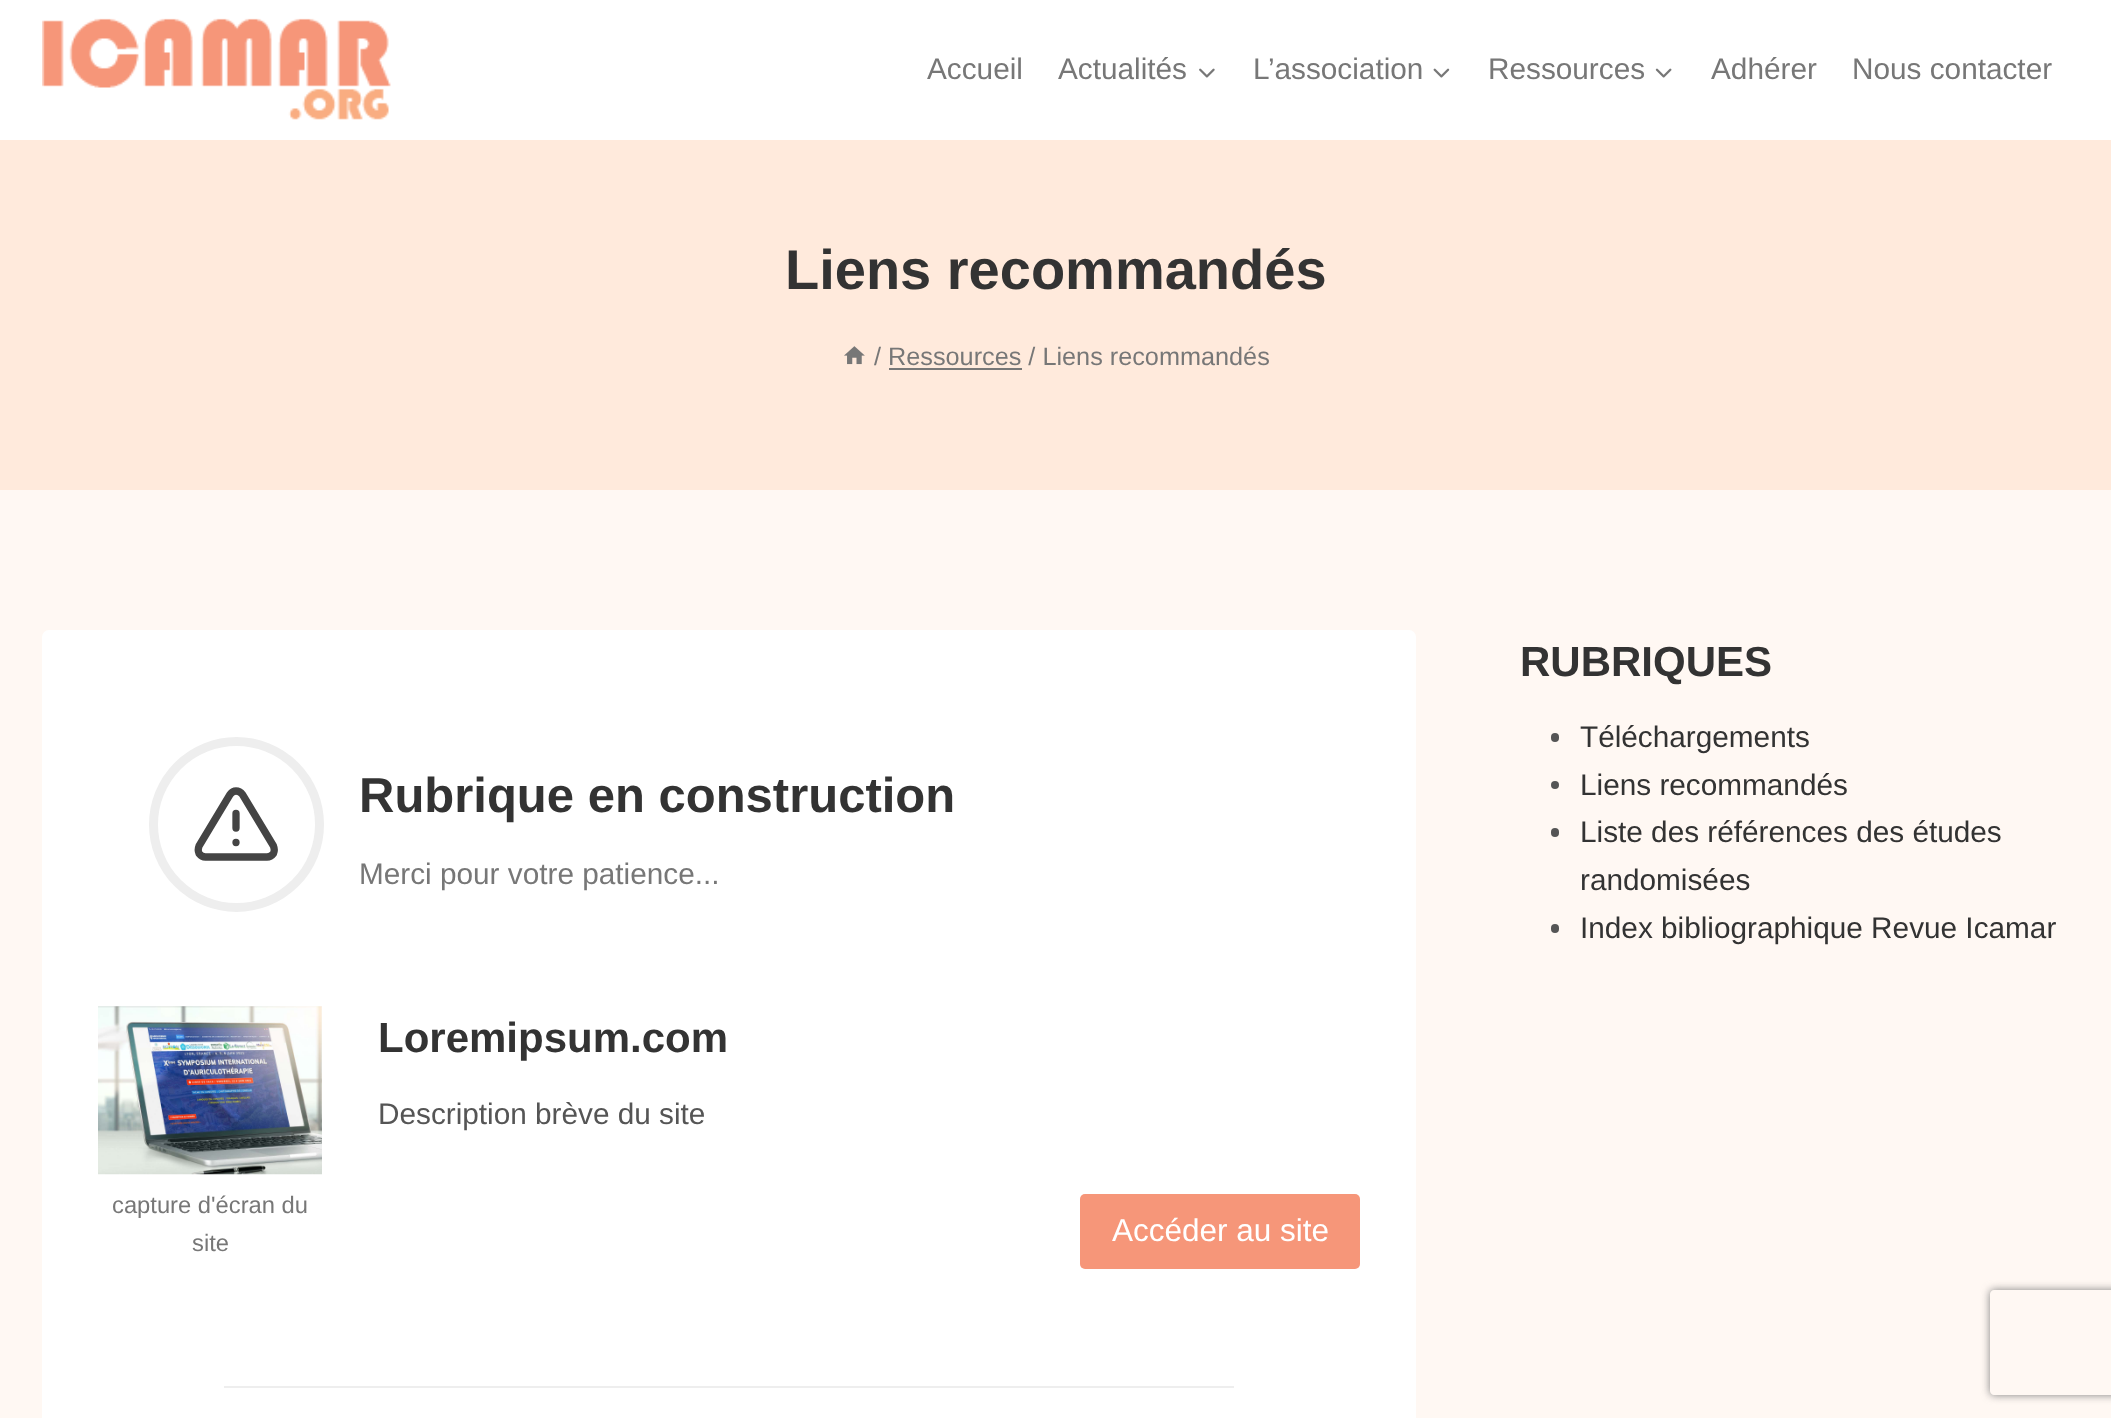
<!DOCTYPE html>
<meta charset="utf-8">
<style>body { margin: 0 } canvas { display: block }</style>
<canvas id="canvas" width="2111" height="1418"></canvas>
<script type="module">
  const canvas = document.getElementById("canvas");
  const g = canvas.getContext("2d");
  g.miterLimit = 4;
  g.fontKerning = "normal";
  function drawText(s, x, y, [font, color]) {
    g.font = font;
    g.fillStyle = color;
    g.fillText(s, x, y);
  }
  function fillBox(x, y, w, h, color) {
    g.fillStyle = color;
    g.fillRect(x, y, w, h);
  }
  function fillRounded(x, y, w, h, r, color) {
    g.fillStyle = color;
    g.beginPath();
    g.roundRect(x, y, w, h, r);
    g.fill();
  }
  async function drawPicture(src, x, y, w, h) {
    const img = new Image();
    img.src = src;
    await img.decode();
    g.drawImage(img, x, y, w, h);
  }

  const s1 = ["29.75px Liberation Sans", "#777777"];
  const s2 = ["bold 56px Liberation Sans", "#333333"];
  const s3 = ["25.25px Liberation Sans", "#777777"];
  const s4 = ["bold 49px Liberation Sans", "#333333"];
  const s5 = ["23.75px Liberation Sans", "#777777"];
  const s6 = ["bold 42px Liberation Sans", "#333333"];
  const s7 = ["29.75px Liberation Sans", "#555555"];
  const s8 = ["31.5px Liberation Sans", "#FFFFFF"];
  const s9 = ["29.75px Liberation Sans", "#333333"];

  fillBox(0, 0, 2111, 1418, "#FFF8F3");
  fillBox(0, 0, 2111, 140, "#FFFFFF");
  await drawPicture("pic1.png", 42, 18, 349, 102);
  drawText("Accueil", 927, 79, s1);
  drawText("Actualités", 1058, 79, s1);
  await drawPicture("pic2.png", 1199, 68, 16, 10);
  drawText("L’association", 1253, 79, s1);
  await drawPicture("pic3.png", 1433, 68, 17, 10);
  drawText("Ressources", 1488, 79, s1);
  await drawPicture("pic4.png", 1655, 68, 17, 10);
  drawText("Adhérer", 1711, 79, s1);
  drawText("Nous contacter", 1852, 79, s1);
  fillBox(0, 140, 2111, 350, "#FFEADC");
  drawText("Liens recommandés", 785, 289, s2);
  await drawPicture("pic5.png", 844, 346, 21, 19);
  drawText("/ Ressources / Liens recommandés", 874, 365, s3);
  fillBox(889, 368, 133, 2, "#777777");
  fillRounded(42, 630, 1374, 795, 7, "#FFFFFF");
  g.beginPath();
  g.arc(236.5, 824.5, 83, 0, Math.PI * 2);
  g.strokeStyle = "#EEEEEE";
  g.lineWidth = 9;
  g.stroke();
  g.beginPath();
  g.moveTo(230, 794.5);
  g.lineTo(199, 846);
  g.bezierCurveTo(198, 848.5, 198, 851, 199, 853.5);
  g.bezierCurveTo(200.5, 855.5, 203, 857, 205.5, 857);
  g.lineTo(267, 857);
  g.bezierCurveTo(269.5, 857, 272, 855.5, 273.5, 853.5);
  g.bezierCurveTo(274.5, 851, 274.5, 848.5, 273.5, 846);
  g.lineTo(242.5, 794.5);
  g.bezierCurveTo(241, 792.5, 239, 791, 236, 791);
  g.bezierCurveTo(233.5, 791, 231.5, 792.5, 230, 794.5);
  g.closePath();
  g.strokeStyle = "#444444";
  g.lineWidth = 7.3;
  g.lineCap = "round";
  g.lineJoin = "round";
  g.stroke();
  g.beginPath();
  g.moveTo(236, 813.5);
  g.lineTo(236, 828);
  g.moveTo(236, 842.5);
  g.lineTo(236, 842.5);
  g.stroke();
  drawText("Rubrique en construction", 359, 812, s4);
  drawText("Merci pour votre patience...", 359, 884, s1);
  await drawPicture("pic6.png", 98, 1006, 224, 169);
  drawText("capture d'écran du", 112, 1213, s5);
  drawText("site", 192, 1251, s5);
  drawText("Loremipsum.com", 378, 1052, s6);
  drawText("Description brève du site", 378, 1124, s7);
  fillRounded(1080, 1194, 280, 75, 5, "#F69679");
  drawText("Accéder au site", 1112, 1241, s8);
  fillBox(224, 1386, 1010, 2, "#EEEEEE");
  drawText("RUBRIQUES", 1520, 676, s6);
  fillRounded(1551, 733, 8, 9, 4, "#555555");
  drawText("Téléchargements", 1580, 747, s9);
  g.fillStyle = "#555555";
  g.beginPath();
  g.arc(1555, 785, 4, 0, Math.PI * 2);
  g.fill();
  drawText("Liens recommandés", 1580, 795, s9);
  fillRounded(1551, 828, 8, 9, 4, "#555555");
  drawText("Liste des références des études", 1580, 842, s9);
  drawText("randomisées", 1580, 890, s9);
  fillRounded(1551, 924, 8, 9, 4, "#555555");
  drawText("Index bibliographique Revue Icamar", 1580, 938, s9);
  g.save();
  g.beginPath();
  g.moveTo(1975, 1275);
  g.lineTo(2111, 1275);
  g.lineTo(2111, 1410);
  g.lineTo(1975, 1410);
  g.closePath();
  g.moveTo(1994, 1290);
  g.lineTo(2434, 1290);
  g.bezierCurveTo(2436, 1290, 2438, 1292, 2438, 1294);
  g.lineTo(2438, 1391);
  g.bezierCurveTo(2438, 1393, 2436, 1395, 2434, 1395);
  g.lineTo(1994, 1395);
  g.bezierCurveTo(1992, 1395, 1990, 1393, 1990, 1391);
  g.lineTo(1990, 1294);
  g.bezierCurveTo(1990, 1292, 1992, 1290, 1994, 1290);
  g.closePath();
  g.clip("evenodd");
  g.fillStyle = "#808080";
  g.filter = "blur(4.5px)";
  g.beginPath();
  g.roundRect(1990, 1290, 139, 105, 4);
  g.fill();
  g.filter = "none";
  g.restore();
</script>
